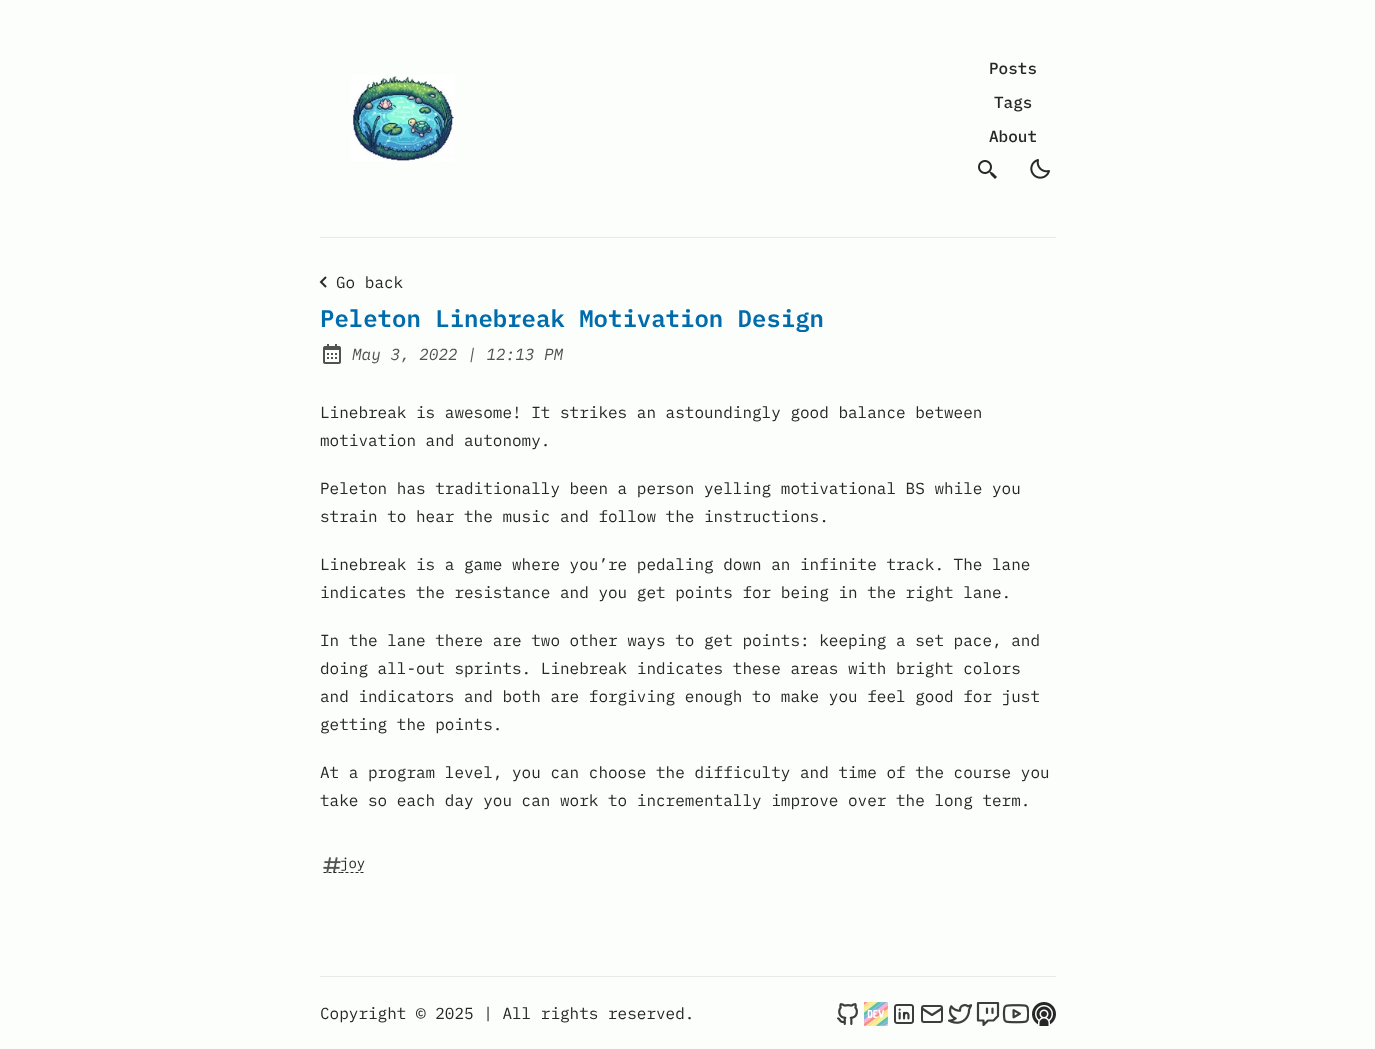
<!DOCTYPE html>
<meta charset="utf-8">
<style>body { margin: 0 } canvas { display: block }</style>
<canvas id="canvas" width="1375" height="1049"></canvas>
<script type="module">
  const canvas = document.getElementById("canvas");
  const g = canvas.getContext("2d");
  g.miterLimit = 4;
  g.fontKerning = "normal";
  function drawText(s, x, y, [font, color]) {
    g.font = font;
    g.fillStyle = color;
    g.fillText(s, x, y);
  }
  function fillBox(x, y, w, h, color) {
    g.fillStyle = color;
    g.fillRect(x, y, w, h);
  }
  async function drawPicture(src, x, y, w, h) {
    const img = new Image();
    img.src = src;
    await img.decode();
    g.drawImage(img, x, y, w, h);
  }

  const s1 = ["500 16px IBM Plex Mono", "#282728"];
  const s2 = ["16px IBM Plex Mono", "#282728"];
  const s3 = ["600 24px IBM Plex Mono", "#006CAC"];
  const s4 = ["italic 16px IBM Plex Mono", "#525252"];
  const s5 = ["14px IBM Plex Mono", "#282728"];

  fillBox(0, 0, 1375, 1049, "#FBFEFB");
  await drawPicture("pic1.png", 351, 75, 104, 86);
  drawText("Posts", 989, 74, s1);
  drawText("Tags", 994, 108, s1);
  drawText("About", 989, 142, s1);
  await drawPicture("pic2.png", 978, 160, 19, 19);
  await drawPicture("pic3.png", 1030, 159, 20, 20);
  fillBox(320, 237, 736, 1, "#ECE9E9");
  await drawPicture("pic4.png", 319, 276, 8, 12);
  drawText("Go back", 336, 288, s2);
  drawText("Peleton Linebreak Motivation Design", 320, 327, s3);
  await drawPicture("pic5.png", 323, 344, 18, 20);
  drawText("May 3, 2022 | 12:13 PM", 352, 360, s4);
  drawText("Linebreak is awesome! It strikes an astoundingly good balance between", 320, 418, s2);
  drawText("motivation and autonomy.", 320, 446, s2);
  drawText("Peleton has traditionally been a person yelling motivational BS while you", 320, 494, s2);
  drawText("strain to hear the music and follow the instructions.", 320, 522, s2);
  drawText("Linebreak is a game where you’re pedaling down an infinite track. The lane", 320, 570, s2);
  drawText("indicates the resistance and you get points for being in the right lane.", 320, 598, s2);
  drawText("In the lane there are two other ways to get points: keeping a set pace, and", 320, 646, s2);
  drawText("doing all-out sprints. Linebreak indicates these areas with bright colors", 320, 674, s2);
  drawText("and indicators and both are forgiving enough to make you feel good for just", 320, 702, s2);
  drawText("getting the points.", 320, 730, s2);
  drawText("At a program level, you can choose the difficulty and time of the course you", 320, 778, s2);
  drawText("take so each day you can work to incrementally improve over the long term.", 320, 806, s2);
  g.beginPath();
  g.moveTo(323.5, 872.5);
  g.lineTo(326.5, 872.5);
  g.moveTo(328.5, 872.5);
  g.lineTo(331.5, 872.5);
  g.moveTo(333.5, 872.5);
  g.lineTo(336.5, 872.5);
  g.moveTo(338.5, 872.5);
  g.lineTo(340.5, 872.5);
  g.strokeStyle = "#282728";
  g.stroke();
  g.beginPath();
  g.moveTo(340.5, 872.5);
  g.lineTo(365.5, 872.5);
  g.setLineDash([3, 2]);
  g.stroke();
  await drawPicture("pic6.png", 323, 857, 18, 16);
  drawText("joy", 340, 868, s5);
  fillBox(320, 976, 736, 1, "#ECE9E9");
  drawText("Copyright © 2025 | All rights reserved.", 320, 1019, s2);
  await drawPicture("pic7.png", 837, 1003, 21, 22);
  await drawPicture("pic8.png", 864, 1002, 24, 24);
  await drawPicture("pic9.png", 894, 1004, 20, 20);
  g.beginPath();
  g.roundRect(922, 1006, 20, 16, 2);
  g.strokeStyle = "#3D3D3D";
  g.lineWidth = 2;
  g.setLineDash([]);
  g.stroke();
  g.beginPath();
  g.moveTo(922, 1008.5);
  g.lineTo(932, 1015);
  g.lineTo(942, 1008.5);
  g.lineWidth = 2.2;
  g.lineCap = "round";
  g.lineJoin = "round";
  g.stroke();
  await drawPicture("pic10.png", 948, 1004, 25, 20);
  g.beginPath();
  g.moveTo(998, 1003);
  g.lineTo(978, 1003);
  g.lineTo(978, 1020.5);
  g.lineTo(983.5, 1020.5);
  g.lineTo(983.5, 1025);
  g.lineTo(988, 1020.5);
  g.lineTo(993.5, 1020.5);
  g.lineTo(998, 1016);
  g.closePath();
  g.moveTo(987, 1013);
  g.lineTo(987, 1008.5);
  g.moveTo(992.5, 1013);
  g.lineTo(992.5, 1008.5);
  g.stroke();
  await drawPicture("pic11.png", 1002, 1004, 27, 20);
  await drawPicture("pic12.png", 1032, 1002, 24, 24);
</script>
